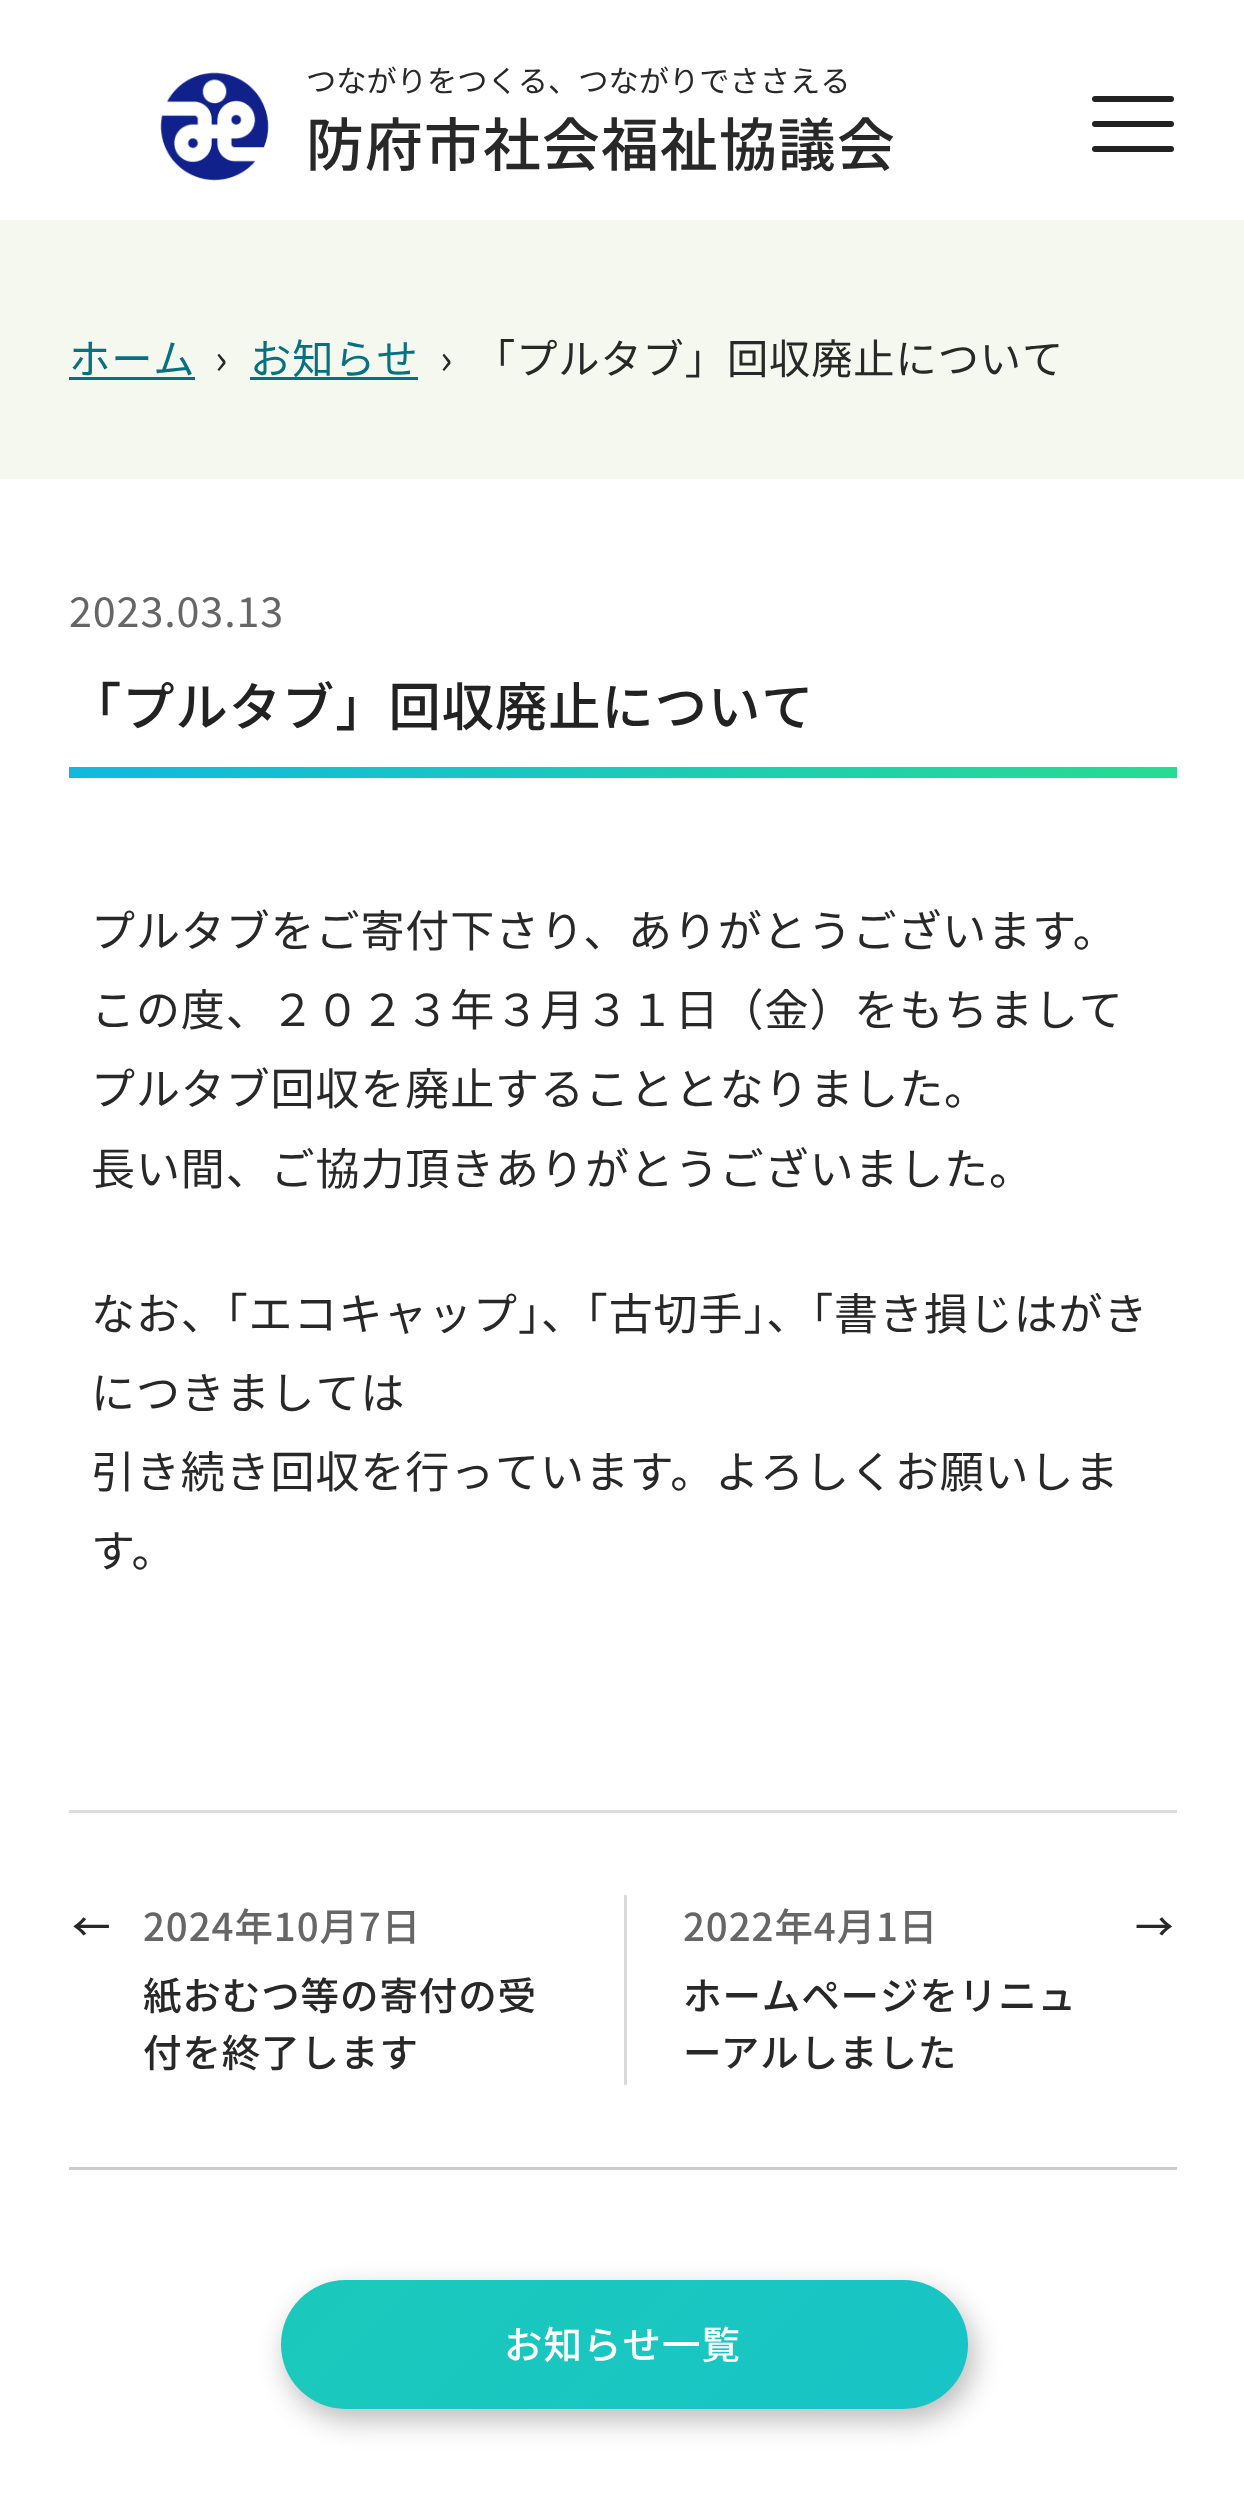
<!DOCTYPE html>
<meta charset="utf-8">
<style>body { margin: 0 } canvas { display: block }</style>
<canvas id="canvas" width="1244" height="2499"></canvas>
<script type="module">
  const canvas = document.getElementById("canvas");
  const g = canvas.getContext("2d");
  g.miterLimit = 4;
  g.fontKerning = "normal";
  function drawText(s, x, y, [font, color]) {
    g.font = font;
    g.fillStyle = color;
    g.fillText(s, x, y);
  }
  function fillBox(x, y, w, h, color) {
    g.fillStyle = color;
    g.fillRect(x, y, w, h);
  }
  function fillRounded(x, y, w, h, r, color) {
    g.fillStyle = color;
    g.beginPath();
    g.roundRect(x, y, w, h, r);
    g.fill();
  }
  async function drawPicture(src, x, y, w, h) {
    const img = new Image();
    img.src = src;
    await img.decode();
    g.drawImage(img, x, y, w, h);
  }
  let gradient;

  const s1 = ["30.25px Noto Sans JP", "#282828"];
  const s2 = ["500 57.75px Noto Sans JP", "#282828"];
  const s3 = ["41.25px Noto Sans JP", "#067182"];
  const s4 = ["41.25px Noto Sans JP", "#282828"];
  const s5 = ["41.25px Noto Sans JP", "#666666"];
  const s6 = ["500 52.25px Noto Sans JP", "#222222"];
  const s7 = ["44px Noto Sans JP", "#282828"];
  const s8 = ["500 38.5px Noto Sans JP", "#282828"];
  const s9 = ["500 38.5px Noto Sans JP", "#666666"];
  const s10 = ["500 38.5px Noto Sans JP", "#FFFFFF"];

  fillBox(0, 0, 1244, 2499, "#FFFFFF");
  await drawPicture("pic1.png", 160, 72, 109, 109);
  drawText("つながりをつくる、つながりでささえる", 306, 92, s1);
  g.letterSpacing = "1.25px";
  drawText("防府市社会福祉協議会", 306, 166, s2);
  fillRounded(1092, 96, 82, 6, 3, "#222222");
  fillRounded(1092, 121, 82, 6, 3, "#222222");
  fillRounded(1092, 146, 82, 6, 3, "#222222");
  fillBox(0, 220, 1244, 259, "#F5F8EE");
  g.letterSpacing = "0.9px";
  drawText("ホーム", 69, 374, s3);
  fillBox(69, 377, 126, 3, "#067182");
  drawText("›", 215, 374, s4);
  fillBox(250, 377, 168, 3, "#067182");
  drawText("お知らせ", 250, 374, s3);
  drawText("›", 440, 374, s4);
  drawText("「プルタブ」回収廃止について", 474, 374, s4);
  drawText("2023.03.13", 69, 627, s5);
  g.letterSpacing = "1px";
  drawText("「プルタブ」回収廃止について", 69, 726, s6);
  gradient = g.createLinearGradient(69, 773, 1177, 773);
  gradient.addColorStop(0, "#10B8E0");
  gradient.addColorStop(1, "#28DB91");
  g.fillStyle = gradient;
  g.fillRect(69, 767, 1108, 11);
  g.letterSpacing = "0.9px";
  drawText("プルタブをご寄付下さり、ありがとうございます。", 91, 947, s7);
  drawText("この度、２０２３年３月３１日（金）をもちまして", 91, 1026, s7);
  drawText("プルタブ回収を廃止することとなりました。", 91, 1105, s7);
  drawText("長い間、ご協力頂きありがとうございました。", 91, 1185, s7);
  drawText("なお、「エコキャップ」、「古切手」、「書き損じはがき", 91, 1330, s7);
  drawText("につきましては", 91, 1409, s7);
  drawText("引き続き回収を行っています。よろしくお願いしま", 91, 1488, s7);
  drawText("す。", 91, 1567, s7);
  fillBox(69, 1810, 1108, 3, "#DDDDDD");
  drawText("←", 72, 1941, s8);
  drawText("2024年10月7日", 143, 1941, s9);
  drawText("紙おむつ等の寄付の受", 143, 2010, s8);
  drawText("付を終了します", 143, 2067, s8);
  fillBox(624, 1895, 3, 190, "#D9D9D9");
  drawText("2022年4月1日", 683, 1941, s9);
  drawText("→", 1135, 1941, s8);
  drawText("ホームページをリニュ", 683, 2010, s8);
  drawText("ーアルしました", 683, 2067, s8);
  fillBox(69, 2167, 1108, 3, "#CCCCCC");
  g.fillStyle = "#BBBBBB";
  g.filter = "blur(14px)";
  g.beginPath();
  g.roundRect(286, 2291, 688, 129, 64.5);
  g.fill();
  g.filter = "none";
  gradient = g.createLinearGradient(420, 2140, 828, 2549);
  gradient.addColorStop(0, "#1BC9BB");
  gradient.addColorStop(1, "#18C4C6");
  g.fillStyle = gradient;
  g.beginPath();
  g.roundRect(281, 2280, 687, 129, 64.5);
  g.fill();
  g.letterSpacing = "1px";
  drawText("お知らせ一覧", 504, 2359, s10);
</script>
